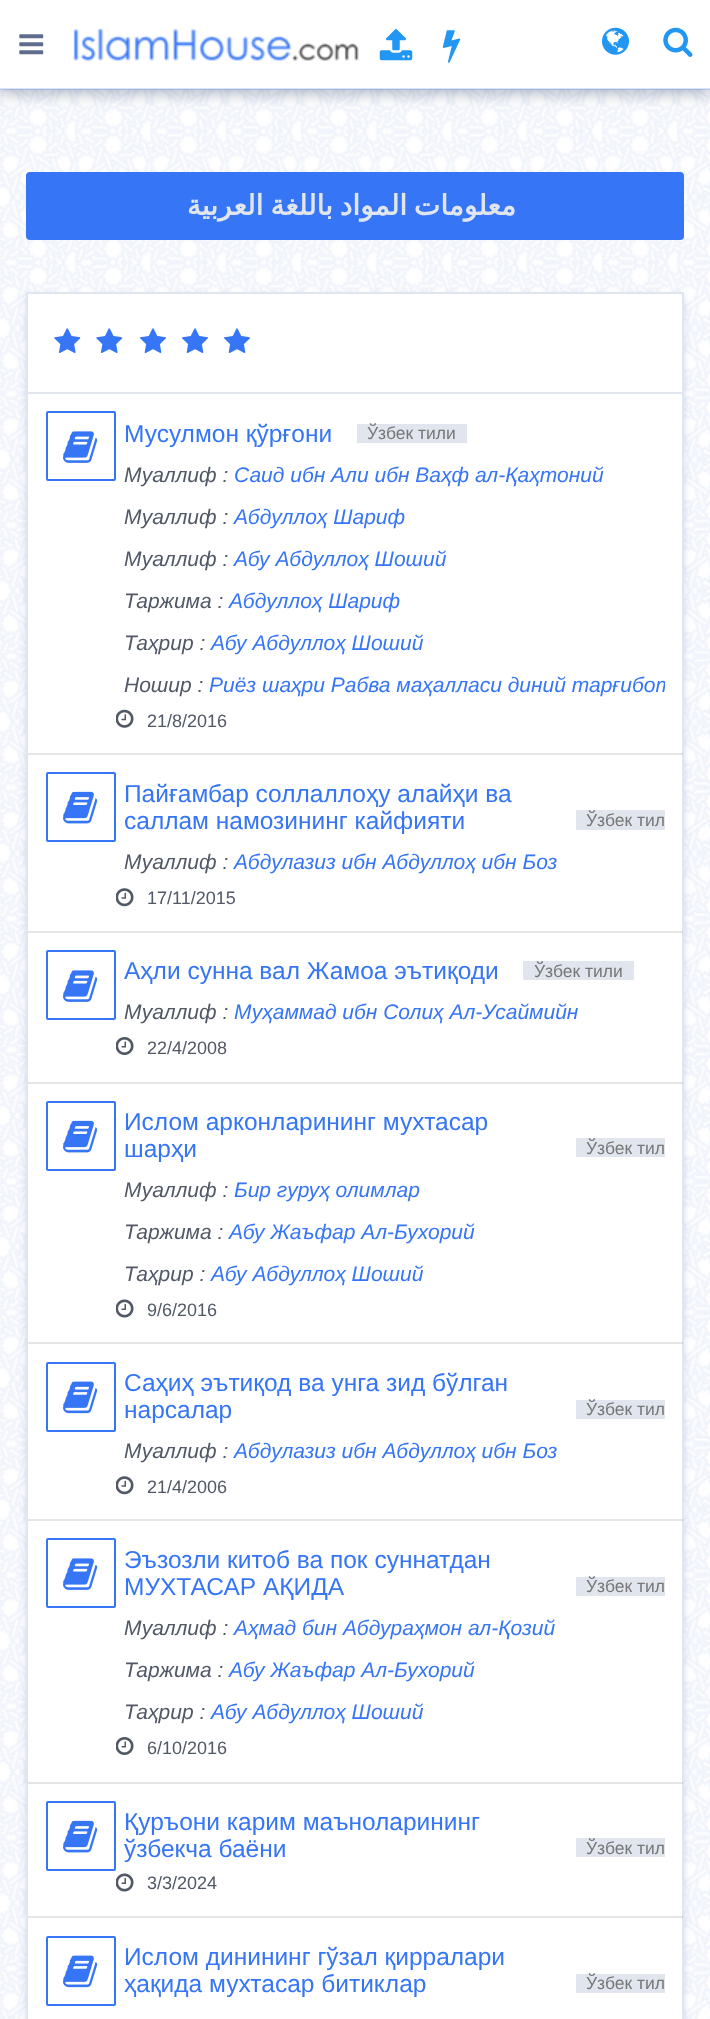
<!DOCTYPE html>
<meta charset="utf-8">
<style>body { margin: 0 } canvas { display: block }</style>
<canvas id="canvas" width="710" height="2019"></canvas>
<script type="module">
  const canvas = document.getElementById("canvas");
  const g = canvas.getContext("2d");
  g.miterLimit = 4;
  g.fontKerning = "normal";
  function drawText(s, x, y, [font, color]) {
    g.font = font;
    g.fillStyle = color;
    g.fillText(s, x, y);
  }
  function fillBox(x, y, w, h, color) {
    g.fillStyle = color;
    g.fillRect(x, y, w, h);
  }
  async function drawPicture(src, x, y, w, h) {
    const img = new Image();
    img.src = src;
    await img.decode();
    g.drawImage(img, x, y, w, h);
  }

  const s1 = ["bold 28px DejaVu Sans", "#E0E5EE"];
  const s2 = ["24.5px Liberation Sans", "#3575F6"];
  const s3 = ["17.5px Liberation Sans", "#777777"];
  const s4 = ["italic 21px Liberation Sans", "#515866"];
  const s5 = ["italic 21px Liberation Sans", "#3575F6"];
  const s6 = ["18px Liberation Sans", "#515866"];

  fillBox(0, 0, 710, 2019, "#FFFFFF");
  await drawPicture("pic7.png", 0, 89, 710, 1930);
  g.fillStyle = "rgba(45, 62, 95, 0.32)";
  g.filter = "blur(7px)";
  g.beginPath();
  g.rect(0, 5, 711, 90);
  g.fill();
  g.filter = "none";
  fillBox(0, 0, 710, 89, "#FFFFFF");
  fillBox(0, 88, 710, 2, "rgba(53, 117, 246, 0.2)");
  await drawPicture("pic1.png", 19, 34, 25, 21);
  await drawPicture("pic2.png", 73, 28, 286, 33);
  await drawPicture("pic3.png", 379, 29, 34, 32);
  await drawPicture("pic4.png", 442, 30, 19, 33);
  await drawPicture("pic5.png", 602, 27, 27, 28);
  await drawPicture("pic6.png", 663, 27, 30, 30);
  g.fillStyle = "#3575F6";
  g.beginPath();
  g.roundRect(27, 173, 656, 66, 3);
  g.fill();
  g.strokeStyle = "#3575F6";
  g.lineWidth = 2;
  g.stroke();
  g.wordSpacing = "-2px";
  g.direction = "rtl";
  drawText("معلومات المواد باللغة العربية", 516, 215, s1);
  g.fillStyle = "rgba(29, 79, 179, 0.2)";
  g.filter = "blur(3.5px)";
  g.beginPath();
  g.rect(26, 296, 658, 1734);
  g.fill();
  g.filter = "none";
  g.fillStyle = "#FFFFFF";
  g.beginPath();
  g.rect(27, 293, 656, 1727);
  g.fill();
  g.strokeStyle = "#E0E5EE";
  g.stroke();
  fillBox(28, 392, 655, 2, "#E0E5EE");
  await drawPicture("pic8.png", 54, 328, 27, 25);
  await drawPicture("pic8.png", 96, 328, 27, 25);
  await drawPicture("pic9.png", 140, 328, 26, 25);
  await drawPicture("pic9.png", 182, 328, 26, 25);
  await drawPicture("pic9.png", 224, 328, 26, 25);
  fillBox(28, 753, 655, 2, "rgba(0, 0, 0, 0.1)");
  g.beginPath();
  g.roundRect(47, 412, 68, 68, 1);
  g.strokeStyle = "#3575F6";
  g.stroke();
  await drawPicture("pic10.png", 63, 431, 35, 32);
  g.wordSpacing = "0px";
  g.direction = "ltr";
  drawText("Мусулмон қўрғони", 124, 442, s2);
  fillBox(357, 424, 110, 19, "#E0E5EE");
  drawText("Ўзбек тили", 367, 439, s3);
  drawText("Муаллиф :", 124, 482, s4);
  drawText("Саид ибн Али ибн Ваҳф ал-Қаҳтоний", 234, 482, s5);
  drawText("Муаллиф :", 124, 524, s4);
  drawText("Абдуллоҳ Шариф", 234, 524, s5);
  drawText("Муаллиф :", 124, 566, s4);
  drawText("Абу Абдуллоҳ Шоший", 234, 566, s5);
  drawText("Таржима :", 124, 608, s4);
  drawText("Абдуллоҳ Шариф", 229, 608, s5);
  drawText("Таҳрир :", 124, 650, s4);
  drawText("Абу Абдуллоҳ Шоший", 211, 650, s5);
  drawText("Ношир :", 124, 692, s4);
  g.save();
  g.beginPath();
  g.rect(116, 453, 549, 282);
  g.clip();
  drawText("Риёз шаҳри Рабва маҳалласи диний тарғибот", 209, 692, s5);
  g.restore();
  await drawPicture("pic11.png", 116, 709, 18, 19);
  drawText("21/8/2016", 147, 727, s6);
  fillBox(28, 931, 655, 2, "rgba(0, 0, 0, 0.1)");
  g.beginPath();
  g.roundRect(47, 773, 68, 68, 1);
  g.stroke();
  await drawPicture("pic12.png", 63, 791, 35, 33);
  drawText("Пайғамбар соллаллоҳу алайҳи ва", 124, 802, s2);
  drawText("саллам намозининг кайфияти", 124, 829, s2);
  fillBox(576, 810, 89, 20, "#E0E5EE");
  drawText("Ўзбек тил", 586, 826, s3);
  drawText("Муаллиф :", 124, 869, s4);
  drawText("Абдулазиз ибн Абдуллоҳ ибн Боз", 234, 869, s5);
  await drawPicture("pic13.png", 116, 888, 18, 19);
  drawText("17/11/2015", 147, 904, s6);
  fillBox(28, 1082, 655, 2, "rgba(0, 0, 0, 0.1)");
  g.beginPath();
  g.roundRect(47, 951, 68, 68, 1);
  g.stroke();
  await drawPicture("pic10.png", 63, 970, 35, 32);
  drawText("Аҳли сунна вал Жамоа эътиқоди", 124, 979, s2);
  fillBox(523, 961, 111, 19, "#E0E5EE");
  drawText("Ўзбек тили", 534, 977, s3);
  drawText("Муаллиф :", 124, 1019, s4);
  drawText("Муҳаммад ибн Солиҳ Ал-Усаймийн", 234, 1019, s5);
  await drawPicture("pic14.png", 116, 1037, 18, 18);
  drawText("22/4/2008", 147, 1054, s6);
  fillBox(28, 1342, 655, 2, "rgba(0, 0, 0, 0.1)");
  g.beginPath();
  g.roundRect(47, 1102, 68, 68, 1);
  g.stroke();
  await drawPicture("pic12.png", 63, 1120, 35, 33);
  drawText("Ислом арконларининг мухтасар", 124, 1130, s2);
  drawText("шарҳи", 124, 1157, s2);
  fillBox(576, 1138, 89, 19, "#E0E5EE");
  drawText("Ўзбек тил", 586, 1154, s3);
  drawText("Муаллиф :", 124, 1197, s4);
  drawText("Бир гуруҳ олимлар", 234, 1197, s5);
  drawText("Таржима :", 124, 1239, s4);
  drawText("Абу Жаъфар Ал-Бухорий", 229, 1239, s5);
  drawText("Таҳрир :", 124, 1281, s4);
  drawText("Абу Абдуллоҳ Шоший", 211, 1281, s5);
  await drawPicture("pic15.png", 116, 1299, 18, 19);
  drawText("9/6/2016", 147, 1316, s6);
  fillBox(28, 1519, 655, 2, "rgba(0, 0, 0, 0.1)");
  g.beginPath();
  g.roundRect(47, 1363, 68, 68, 1);
  g.stroke();
  await drawPicture("pic16.png", 63, 1381, 35, 33);
  drawText("Саҳиҳ эътиқод ва унга зид бўлган", 124, 1391, s2);
  drawText("нарсалар", 124, 1418, s2);
  fillBox(576, 1400, 89, 19, "#E0E5EE");
  drawText("Ўзбек тил", 586, 1415, s3);
  drawText("Муаллиф :", 124, 1458, s4);
  drawText("Абдулазиз ибн Абдуллоҳ ибн Боз", 234, 1458, s5);
  await drawPicture("pic13.png", 116, 1476, 18, 19);
  drawText("21/4/2006", 147, 1493, s6);
  fillBox(28, 1782, 655, 2, "rgba(0, 0, 0, 0.1)");
  g.beginPath();
  g.roundRect(47, 1539, 68, 68, 1);
  g.stroke();
  await drawPicture("pic10.png", 63, 1558, 35, 32);
  drawText("Эъзозли китоб ва пок суннатдан", 124, 1568, s2);
  drawText("МУХТАСАР АҚИДА", 124, 1595, s2);
  fillBox(576, 1577, 89, 19, "#E0E5EE");
  drawText("Ўзбек тил", 586, 1592, s3);
  drawText("Муаллиф :", 124, 1635, s4);
  drawText("Аҳмад бин Абдураҳмон ал-Қозий", 234, 1635, s5);
  drawText("Таржима :", 124, 1677, s4);
  drawText("Абу Жаъфар Ал-Бухорий", 229, 1677, s5);
  drawText("Таҳрир :", 124, 1719, s4);
  drawText("Абу Абдуллоҳ Шоший", 211, 1719, s5);
  await drawPicture("pic14.png", 116, 1737, 18, 18);
  drawText("6/10/2016", 147, 1754, s6);
  fillBox(28, 1916, 655, 2, "rgba(0, 0, 0, 0.1)");
  g.beginPath();
  g.roundRect(47, 1802, 68, 68, 1);
  g.stroke();
  await drawPicture("pic12.png", 63, 1820, 35, 33);
  drawText("Қуръони карим маъноларининг", 124, 1830, s2);
  drawText("ўзбекча баёни", 124, 1857, s2);
  fillBox(576, 1838, 89, 19, "#E0E5EE");
  drawText("Ўзбек тил", 586, 1854, s3);
  await drawPicture("pic17.png", 116, 1873, 18, 19);
  drawText("3/3/2024", 147, 1889, s6);
  g.beginPath();
  g.roundRect(47, 1937, 68, 68, 1);
  g.stroke();
  await drawPicture("pic16.png", 63, 1955, 35, 33);
  drawText("Ислом динининг гўзал қирралари", 124, 1965, s2);
  drawText("ҳақида мухтасар битиклар", 124, 1992, s2);
  fillBox(576, 1974, 89, 19, "#E0E5EE");
  drawText("Ўзбек тил", 586, 1989, s3);
</script>
